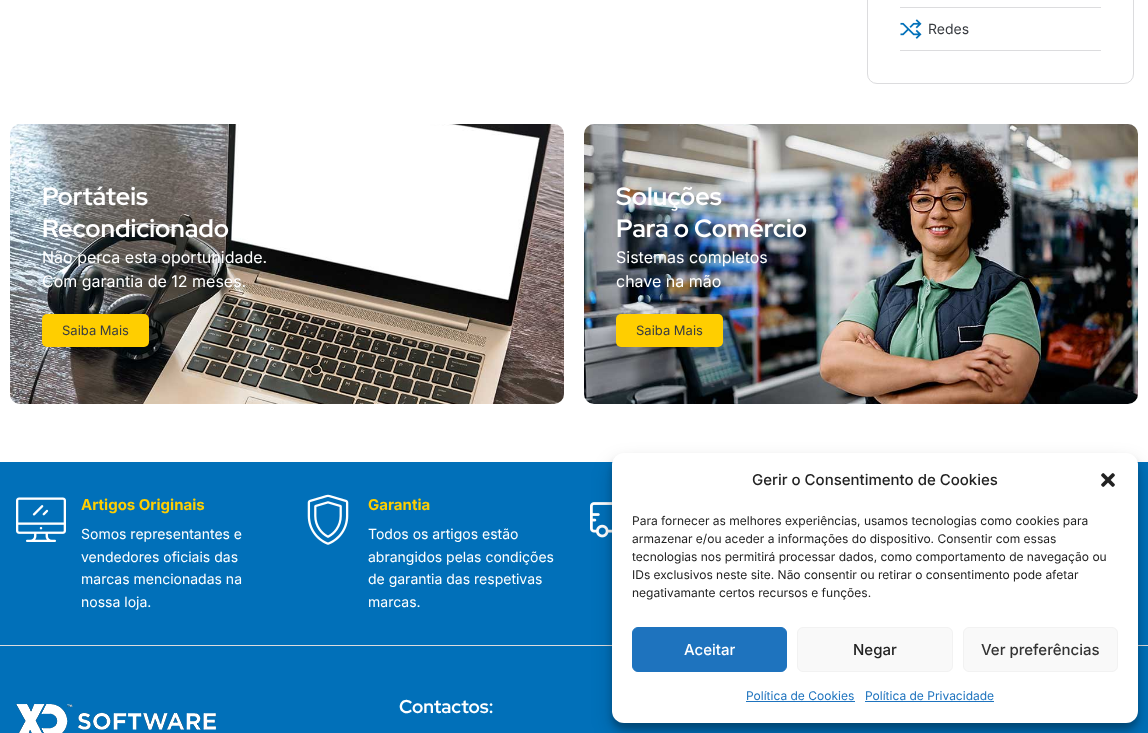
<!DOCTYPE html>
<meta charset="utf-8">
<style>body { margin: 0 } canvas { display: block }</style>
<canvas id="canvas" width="1148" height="733"></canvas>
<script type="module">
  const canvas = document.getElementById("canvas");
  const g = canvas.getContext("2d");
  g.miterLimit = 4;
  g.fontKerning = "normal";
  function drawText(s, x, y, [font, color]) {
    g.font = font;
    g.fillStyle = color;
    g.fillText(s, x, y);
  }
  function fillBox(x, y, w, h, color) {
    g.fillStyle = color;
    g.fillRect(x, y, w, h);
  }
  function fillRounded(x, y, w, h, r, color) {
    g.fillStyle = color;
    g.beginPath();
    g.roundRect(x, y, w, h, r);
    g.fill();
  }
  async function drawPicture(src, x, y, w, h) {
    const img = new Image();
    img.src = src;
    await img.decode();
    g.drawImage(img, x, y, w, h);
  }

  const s1 = ["14px Inter", "#393C41"];
  const s2 = ["bold 25px Red Hat Display", "#FFFFFF"];
  const s3 = ["16px Inter", "#FFFFFF"];
  const s4 = ["13px Inter", "#393C41"];
  const s5 = ["bold 15px Inter", "#FFCE00"];
  const s6 = ["14px Inter", "#FFFFFF"];
  const s7 = ["bold 18.5px Red Hat Display", "#FFFFFF"];
  const s8 = ["500 15px Inter", "#222222"];
  const s9 = ["12px Inter", "#222222"];
  const s10 = ["500 15px Inter", "#FFFFFF"];
  const s11 = ["500 15px Inter", "#333333"];
  const s12 = ["12px Inter", "#1E73BE"];

  fillBox(0, 0, 1148, 733, "#FFFFFF");
  g.beginPath();
  g.roundRect(867.5, -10.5, 266, 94, 9.5);
  g.strokeStyle = "#DCDCDE";
  g.stroke();
  fillBox(900, 7, 201, 1, "#DCDCDE");
  fillBox(900, 50, 201, 1, "#DCDCDE");
  await drawPicture("pic1.png", 900, 19, 22, 20);
  drawText("Redes", 928, 34, s1);
  await drawPicture("pic2.png", 10, 124, 554, 280);
  drawText("Portáteis", 42, 205, s2);
  drawText("Recondicionado", 42, 237, s2);
  drawText("Não perca esta oportunidade.", 42, 263, s3);
  drawText("Com garantia de 12 meses.", 42, 287, s3);
  fillRounded(42, 314, 107, 33, 5, "#FFCE00");
  drawText("Saiba Mais", 62, 335, s4);
  await drawPicture("pic3.png", 584, 124, 554, 280);
  drawText("Soluções", 616, 205, s2);
  drawText("Para o Comércio", 616, 237, s2);
  drawText("Sistemas completos", 616, 263, s3);
  drawText("chave na mão", 616, 287, s3);
  fillRounded(616, 314, 107, 33, 5, "#FFCE00");
  drawText("Saiba Mais", 636, 335, s4);
  fillBox(0, 462, 1148, 271, "#0170B9");
  fillBox(0, 645, 1148, 1, "#DCDCDE");
  await drawPicture("pic4.png", 16, 497, 50, 45);
  drawText("Artigos Originais", 81, 510, s5);
  drawText("Somos representantes e", 81, 539, s6);
  drawText("vendedores oficiais das", 81, 562, s6);
  drawText("marcas mencionadas na", 81, 584, s6);
  drawText("nossa loja.", 81, 607, s6);
  await drawPicture("pic5.png", 307, 494, 42, 51);
  drawText("Garantia", 368, 510, s5);
  drawText("Todos os artigos estão", 368, 539, s6);
  drawText("abrangidos pelas condições", 368, 562, s6);
  drawText("de garantia das respetivas", 368, 584, s6);
  drawText("marcas.", 368, 607, s6);
  await drawPicture("pic6.png", 590, 502, 22, 36);
  await drawPicture("pic7.png", 16, 704, 200, 29);
  drawText("Contactos:", 399, 713, s7);
  g.fillStyle = "rgba(0, 0, 0, 0.23)";
  g.filter = "blur(3px)";
  g.beginPath();
  g.roundRect(612, 459, 526, 270, 12);
  g.fill();
  g.filter = "none";
  g.fillStyle = "rgba(0, 0, 0, 0.19)";
  g.filter = "blur(10px)";
  g.beginPath();
  g.roundRect(612, 463, 526, 270, 12);
  g.fill();
  g.filter = "none";
  fillRounded(612, 453, 526, 270, 12, "#FFFFFF");
  drawText("Gerir o Consentimento de Cookies", 752, 485, s8);
  await drawPicture("pic8.png", 1101, 473, 14, 14);
  drawText("Para fornecer as melhores experiências, usamos tecnologias como cookies para", 632, 525, s9);
  drawText("armazenar e/ou aceder a informações do dispositivo. Consentir com essas", 632, 543, s9);
  drawText("tecnologias nos permitirá processar dados, como comportamento de navegação ou", 632, 561, s9);
  drawText("IDs exclusivos neste site. Não consentir ou retirar o consentimento pode afetar", 632, 579, s9);
  drawText("negativamante certos recursos e funções.", 632, 597, s9);
  g.fillStyle = "#1E73BE";
  g.beginPath();
  g.roundRect(632.5, 627.5, 154, 44, 5.5);
  g.fill();
  g.strokeStyle = "#1E73BE";
  g.stroke();
  drawText("Aceitar", 684, 655, s10);
  g.fillStyle = "#F9F9F9";
  g.beginPath();
  g.roundRect(797.5, 627.5, 155, 44, 5.5);
  g.fill();
  g.strokeStyle = "#F2F2F2";
  g.stroke();
  drawText("Negar", 853, 655, s8);
  g.fillStyle = "#F9F9F9";
  g.beginPath();
  g.roundRect(963.5, 627.5, 154, 44, 5.5);
  g.fill();
  g.stroke();
  drawText("Ver preferências", 981, 655, s11);
  drawText("Política de Cookies", 746, 700, s12);
  fillBox(746, 701, 109, 1, "#1E73BE");
  drawText("Política de Privacidade", 865, 700, s12);
  fillBox(865, 701, 129, 1, "#1E73BE");
</script>
